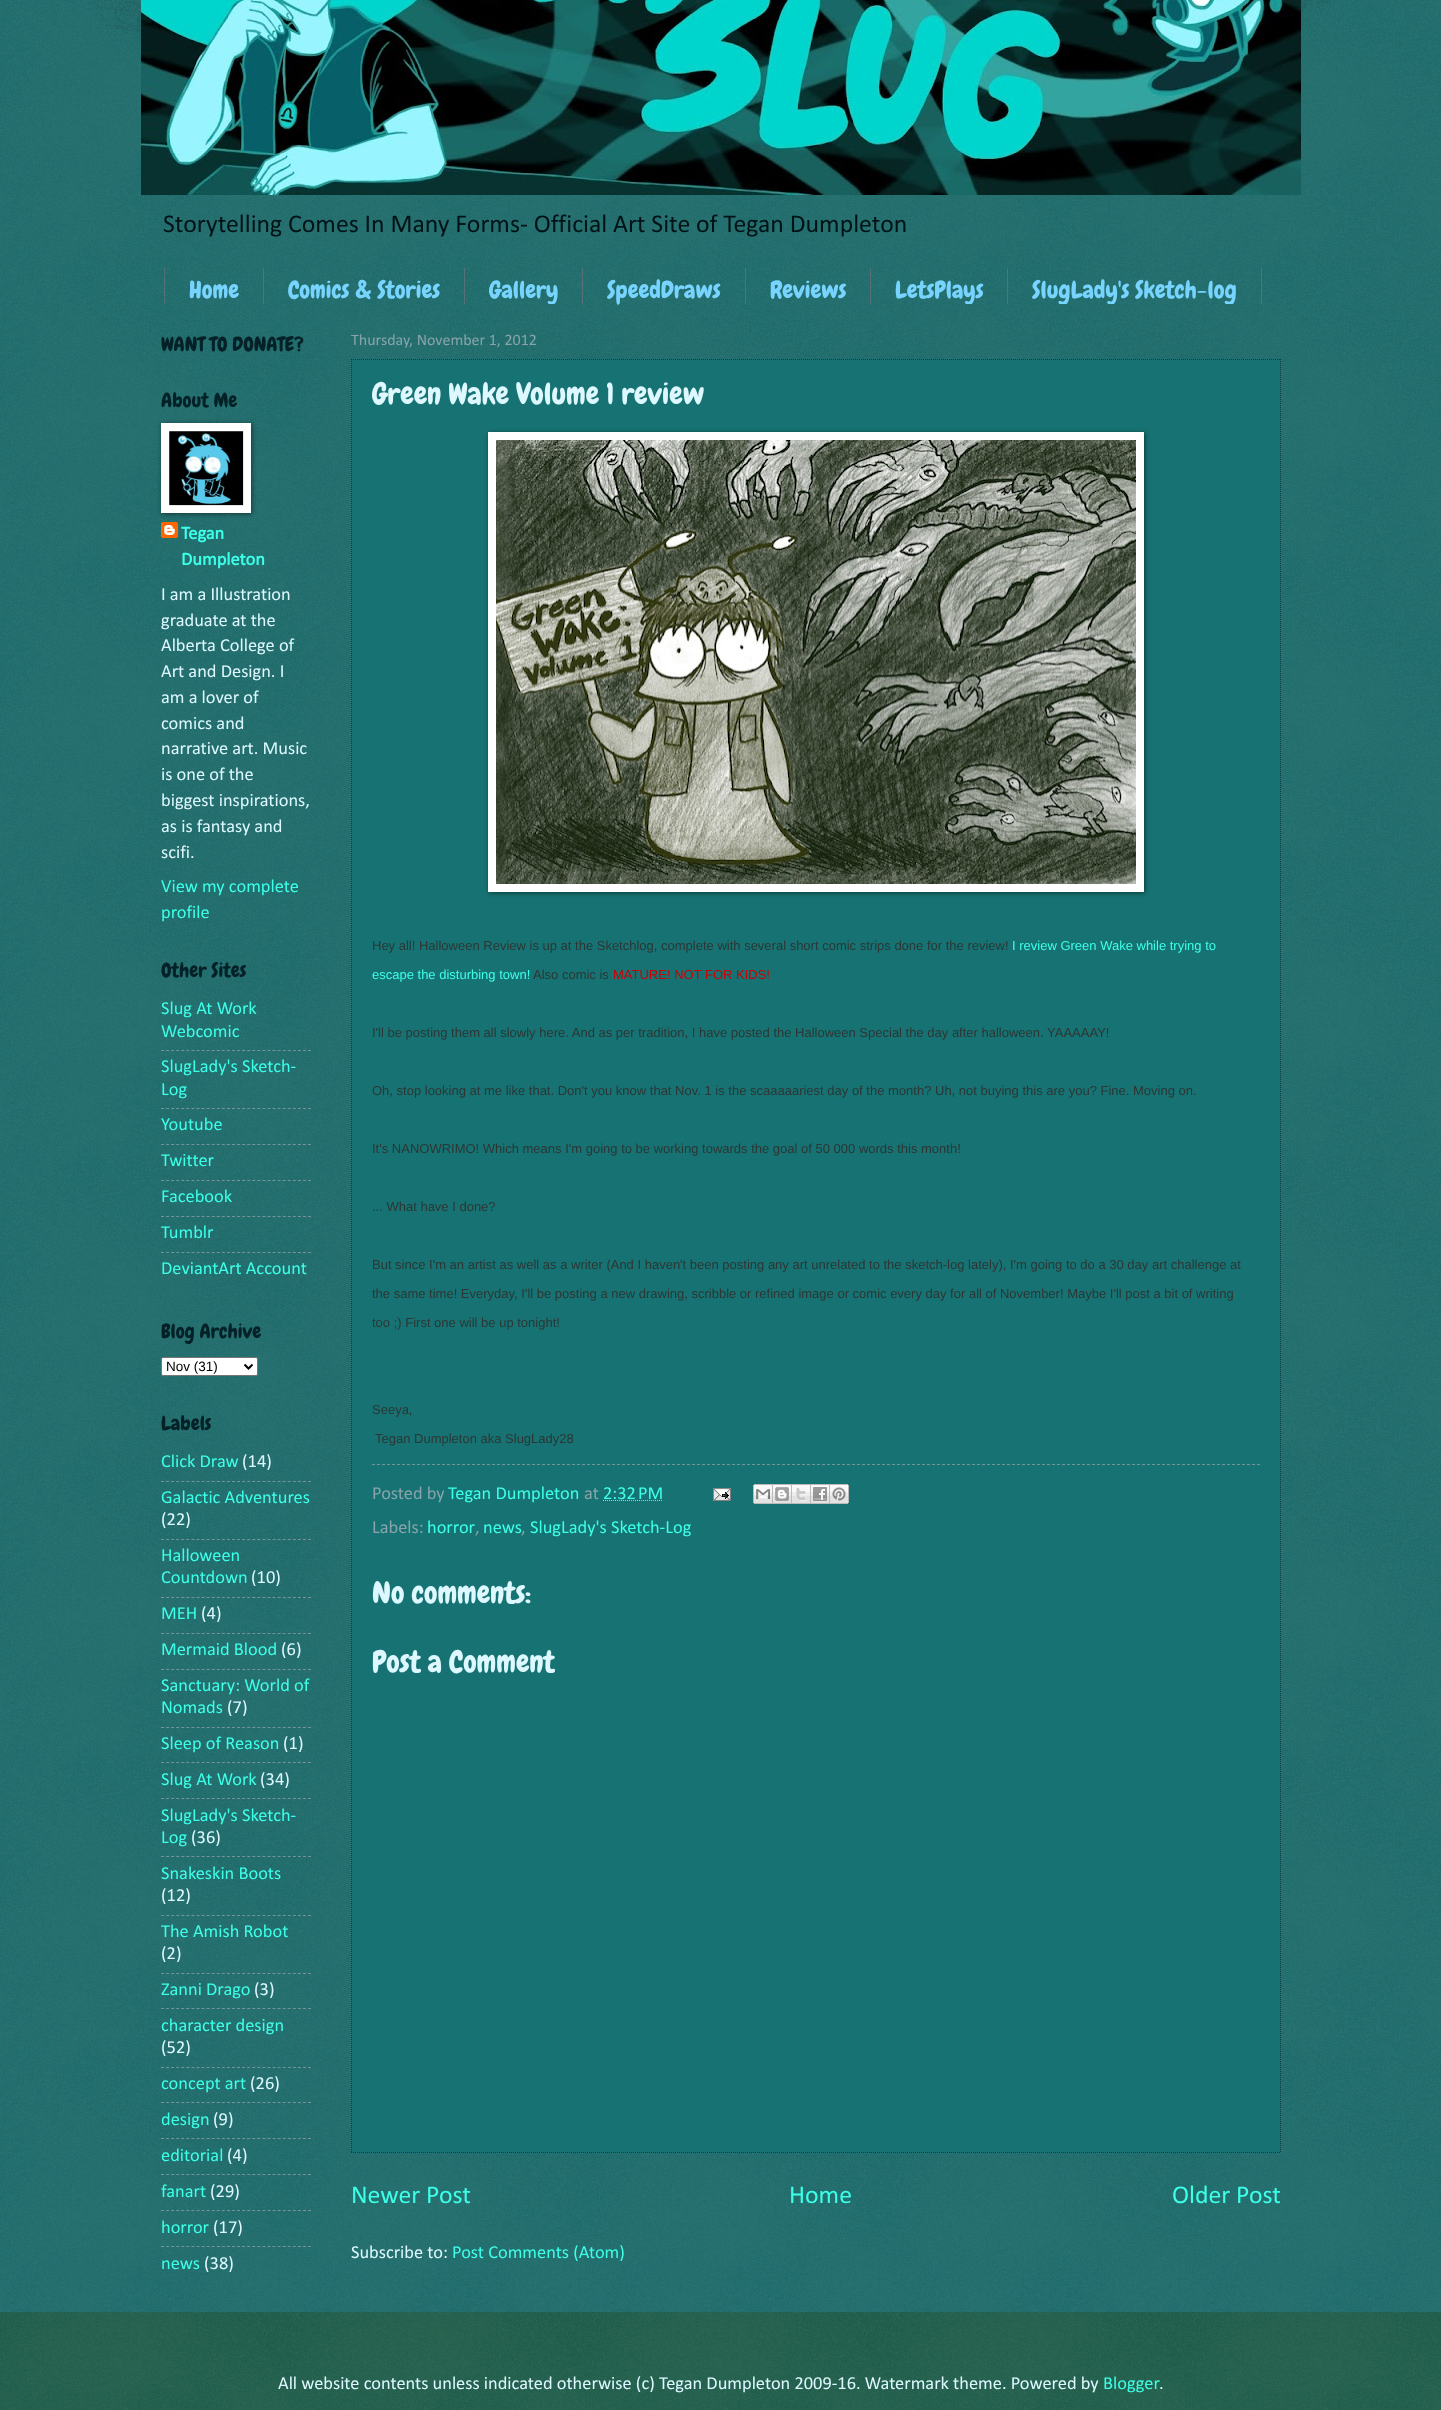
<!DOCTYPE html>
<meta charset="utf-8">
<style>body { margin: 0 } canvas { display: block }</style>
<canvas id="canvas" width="1441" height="2410"></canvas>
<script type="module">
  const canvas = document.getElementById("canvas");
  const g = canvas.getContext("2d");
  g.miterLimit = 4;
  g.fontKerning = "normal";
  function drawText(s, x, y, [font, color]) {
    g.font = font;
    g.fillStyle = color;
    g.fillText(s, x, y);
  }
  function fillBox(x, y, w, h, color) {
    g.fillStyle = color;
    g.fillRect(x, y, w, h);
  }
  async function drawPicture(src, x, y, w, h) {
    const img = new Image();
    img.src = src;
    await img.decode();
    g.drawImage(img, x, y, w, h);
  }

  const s1 = ["25.75px Calibri", "#021317"];
  const s2 = ["24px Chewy", "#77D4FF"];
  const s3 = ["20px Chewy", "#052128"];
  const s4 = ["bold 18.4px Calibri", "#3DFFE8"];
  const s5 = ["18.4px Calibri", "#DDF8FF"];
  const s6 = ["18.4px Calibri", "#3DFFE8"];
  const s7 = ["13.5px Liberation Sans", "#000000"];
  const s8 = ["16px Calibri", "#88A4AA"];
  const s9 = ["30px Chewy", "#DDF8FF"];
  const s10 = ["13px Liberation Sans", "#2C3635"];
  const s11 = ["13px Liberation Sans", "#3DFFE8"];
  const s12 = ["13px Liberation Sans", "#CC0000"];
  const s13 = ["18.4px Calibri", "#88A4AA"];
  const s14 = ["25.75px Calibri", "#3DFFE8"];

  fillBox(0, 0, 1441, 2410, "#005757");
  await drawPicture("pic1.png", 0, 0, 1441, 2312);
  await drawPicture("pic2.png", 92, 0, 1244, 42);
  await drawPicture("pic3.png", 141, 0, 1160, 195);
  drawText("Storytelling Comes In Many Forms- Official Art Site of Tegan Dumpleton", 163, 232, s1);
  fillBox(263, 268, 1, 36, "#567278");
  fillBox(164, 268, 1, 36, "#567278");
  drawText("Home", 189, 298, s2);
  fillBox(464, 268, 1, 36, "#567278");
  drawText("Comics & Stories", 288, 298, s2);
  fillBox(582, 268, 1, 36, "#567278");
  g.save();
  g.beginPath();
  g.rect(139, 266, 1164, 38);
  g.clip();
  drawText("Gallery", 489, 298, s2);
  g.restore();
  fillBox(745, 268, 1, 36, "#567278");
  drawText("SpeedDraws", 607, 298, s2);
  fillBox(870, 268, 1, 36, "#567278");
  drawText("Reviews", 770, 298, s2);
  fillBox(1007, 268, 1, 36, "#567278");
  g.save();
  g.beginPath();
  g.rect(139, 266, 1164, 38);
  g.clip();
  drawText("LetsPlays", 895, 298, s2);
  g.restore();
  fillBox(1261, 268, 1, 36, "#567278");
  g.save();
  g.beginPath();
  g.rect(139, 266, 1164, 38);
  g.clip();
  drawText("SlugLady's Sketch-log", 1032, 298, s2);
  g.restore();
  drawText("WANT TO DONATE?", 161, 351, s3);
  drawText("About Me", 161, 407, s3);
  await drawPicture("pic5.png", 161, 522, 17, 16);
  g.fillStyle = "rgba(0, 0, 0, 0.5)";
  g.filter = "blur(2.5px)";
  g.beginPath();
  g.rect(162, 424, 90, 90);
  g.fill();
  g.filter = "none";
  fillBox(161, 423, 90, 90, "#FFFFFF");
  await drawPicture("pic4.png", 169, 431, 75, 75);
  drawText("Tegan", 181, 539, s4);
  drawText("Dumpleton", 181, 565, s4);
  drawText("I am a Illustration", 161, 600, s5);
  drawText("graduate at the", 161, 626, s5);
  drawText("Alberta College of", 161, 651, s5);
  drawText("Art and Design. I", 161, 677, s5);
  drawText("am a lover of", 161, 703, s5);
  drawText("comics and", 161, 729, s5);
  drawText("narrative art. Music", 161, 754, s5);
  drawText("is one of the", 161, 780, s5);
  drawText("biggest inspirations,", 161, 806, s5);
  drawText("as is fantasy and", 161, 832, s5);
  drawText("scifi.", 161, 858, s5);
  drawText("View my complete", 161, 892, s6);
  drawText("profile", 161, 918, s6);
  drawText("Other Sites", 161, 977, s3);
  drawText("Slug At Work", 161, 1014, s6);
  drawText("Webcomic", 161, 1037, s6);
  g.beginPath();
  g.moveTo(161, 1050.5);
  g.lineTo(311, 1050.5);
  g.strokeStyle = "#779399";
  g.setLineDash([3, 2.07]);
  g.stroke();
  drawText("SlugLady's Sketch-", 161, 1072, s6);
  drawText("Log", 161, 1095, s6);
  g.beginPath();
  g.moveTo(161, 1108.5);
  g.lineTo(311, 1108.5);
  g.stroke();
  drawText("Youtube", 161, 1130, s6);
  g.beginPath();
  g.moveTo(161, 1144.5);
  g.lineTo(311, 1144.5);
  g.stroke();
  drawText("Twitter", 161, 1166, s6);
  g.beginPath();
  g.moveTo(161, 1180.5);
  g.lineTo(311, 1180.5);
  g.stroke();
  drawText("Facebook", 161, 1202, s6);
  g.beginPath();
  g.moveTo(161, 1216.5);
  g.lineTo(311, 1216.5);
  g.stroke();
  drawText("Tumblr", 161, 1238, s6);
  g.beginPath();
  g.moveTo(161, 1252.5);
  g.lineTo(311, 1252.5);
  g.stroke();
  drawText("DeviantArt Account", 161, 1274, s6);
  drawText("Blog Archive", 161, 1338, s3);
  g.fillStyle = "#FFFFFF";
  g.beginPath();
  g.roundRect(161.5, 1357.5, 96, 18, 1.5);
  g.fill();
  g.strokeStyle = "#767676";
  g.setLineDash([]);
  g.stroke();
  g.beginPath();
  g.moveTo(244.5, 1364.5);
  g.lineTo(248.5, 1368.5);
  g.lineTo(252.5, 1364.5);
  g.strokeStyle = "#000000";
  g.lineWidth = 2;
  g.stroke();
  drawText("Nov (31)", 166, 1371, s7);
  drawText("Labels", 161, 1430, s3);
  drawText("Click Draw", 161, 1467, s6);
  drawText("(14)", 242, 1467, s5);
  g.beginPath();
  g.moveTo(161, 1481.5);
  g.lineTo(311, 1481.5);
  g.strokeStyle = "#779399";
  g.lineWidth = 1;
  g.setLineDash([3, 2.07]);
  g.stroke();
  drawText("Galactic Adventures", 161, 1503, s6);
  drawText("(22)", 161, 1525, s5);
  g.beginPath();
  g.moveTo(161, 1539.5);
  g.lineTo(311, 1539.5);
  g.stroke();
  drawText("Halloween", 161, 1561, s6);
  drawText("Countdown", 161, 1583, s6);
  drawText("(10)", 251, 1583, s5);
  g.beginPath();
  g.moveTo(161, 1597.5);
  g.lineTo(311, 1597.5);
  g.stroke();
  drawText("MEH", 161, 1619, s6);
  drawText("(4)", 201, 1619, s5);
  g.beginPath();
  g.moveTo(161, 1633.5);
  g.lineTo(311, 1633.5);
  g.stroke();
  drawText("Mermaid Blood", 161, 1655, s6);
  drawText("(6)", 281, 1655, s5);
  g.beginPath();
  g.moveTo(161, 1669.5);
  g.lineTo(311, 1669.5);
  g.stroke();
  drawText("Sanctuary: World of", 161, 1691, s6);
  drawText("Nomads", 161, 1713, s6);
  drawText("(7)", 227, 1713, s5);
  g.beginPath();
  g.moveTo(161, 1727.5);
  g.lineTo(311, 1727.5);
  g.stroke();
  drawText("Sleep of Reason", 161, 1749, s6);
  drawText("(1)", 283, 1749, s5);
  g.beginPath();
  g.moveTo(161, 1762.5);
  g.lineTo(311, 1762.5);
  g.stroke();
  drawText("Slug At Work", 161, 1785, s6);
  drawText("(34)", 260, 1785, s5);
  g.beginPath();
  g.moveTo(161, 1798.5);
  g.lineTo(311, 1798.5);
  g.stroke();
  drawText("SlugLady's Sketch-", 161, 1821, s6);
  drawText("Log", 161, 1843, s6);
  drawText("(36)", 191, 1843, s5);
  g.beginPath();
  g.moveTo(161, 1856.5);
  g.lineTo(311, 1856.5);
  g.stroke();
  drawText("Snakeskin Boots", 161, 1879, s6);
  drawText("(12)", 161, 1901, s5);
  g.beginPath();
  g.moveTo(161, 1915.5);
  g.lineTo(311, 1915.5);
  g.stroke();
  drawText("The Amish Robot", 161, 1937, s6);
  drawText("(2)", 161, 1959, s5);
  g.beginPath();
  g.moveTo(161, 1973.5);
  g.lineTo(311, 1973.5);
  g.stroke();
  drawText("Zanni Drago", 161, 1995, s6);
  drawText("(3)", 254, 1995, s5);
  g.beginPath();
  g.moveTo(161, 2008.5);
  g.lineTo(311, 2008.5);
  g.stroke();
  drawText("character design", 161, 2031, s6);
  drawText("(52)", 161, 2053, s5);
  g.beginPath();
  g.moveTo(161, 2067.5);
  g.lineTo(311, 2067.5);
  g.stroke();
  drawText("concept art", 161, 2089, s6);
  drawText("(26)", 250, 2089, s5);
  g.beginPath();
  g.moveTo(161, 2102.5);
  g.lineTo(311, 2102.5);
  g.stroke();
  drawText("design", 161, 2125, s6);
  drawText("(9)", 213, 2125, s5);
  g.beginPath();
  g.moveTo(161, 2138.5);
  g.lineTo(311, 2138.5);
  g.stroke();
  drawText("editorial", 161, 2161, s6);
  drawText("(4)", 227, 2161, s5);
  g.beginPath();
  g.moveTo(161, 2174.5);
  g.lineTo(311, 2174.5);
  g.stroke();
  drawText("fanart", 161, 2197, s6);
  drawText("(29)", 210, 2197, s5);
  g.beginPath();
  g.moveTo(161, 2210.5);
  g.lineTo(311, 2210.5);
  g.stroke();
  drawText("horror", 161, 2233, s6);
  drawText("(17)", 213, 2233, s5);
  g.beginPath();
  g.moveTo(161, 2246.5);
  g.lineTo(311, 2246.5);
  g.stroke();
  drawText("news", 161, 2269, s6);
  drawText("(38)", 204, 2269, s5);
  drawText("Thursday, November 1, 2012", 351, 345, s8);
  fillBox(351, 359, 930, 1794, "#177373");
  g.beginPath();
  g.moveTo(351, 359.5);
  g.lineTo(1281, 359.5);
  g.strokeStyle = "#153941";
  g.setLineDash([1, 1]);
  g.stroke();
  g.beginPath();
  g.moveTo(1280.5, 359);
  g.lineTo(1280.5, 2153);
  g.stroke();
  g.beginPath();
  g.moveTo(351, 2152.5);
  g.lineTo(1281, 2152.5);
  g.stroke();
  g.beginPath();
  g.moveTo(351.5, 359);
  g.lineTo(351.5, 2153);
  g.stroke();
  drawText("Green Wake Volume 1 review", 372, 404, s9);
  g.fillStyle = "rgba(0, 0, 0, 0.5)";
  g.filter = "blur(2.5px)";
  g.beginPath();
  g.rect(489, 433, 656, 460);
  g.fill();
  g.filter = "none";
  fillBox(488, 432, 656, 460, "#FFFFFF");
  await drawPicture("pic6.png", 496, 440, 640, 444);
  drawText("Hey all! Halloween Review is up at the Sketchlog, complete with several short comic strips done for the review!", 372, 950, s10);
  drawText("I review Green Wake while trying to", 1012, 950, s11);
  drawText("escape the disturbing town!", 372, 979, s11);
  drawText("Also comic is", 533, 979, s10);
  drawText("MATURE! NOT FOR KIDS!", 613, 979, s12);
  drawText("I'll be posting them all slowly here. And as per tradition, I have posted the Halloween Special the day after halloween. YAAAAAY!", 372, 1037, s10);
  drawText("Oh, stop looking at me like that. Don't you know that Nov. 1 is the scaaaaariest day of the month? Uh, not buying this are you? Fine. Moving on.", 372, 1095, s10);
  drawText("It's NANOWRIMO! Which means I'm going to be working towards the goal of 50 000 words this month!", 372, 1153, s10);
  drawText("... What have I done?", 372, 1211, s10);
  drawText("But since I'm an artist as well as a writer (And I haven't been posting any art unrelated to the sketch-log lately), I'm going to do a 30 day art challenge at", 372, 1269, s10);
  drawText("the same time! Everyday, I'll be posting a new drawing, scribble or refined image or comic every day for all of November! Maybe I'll post a bit of writing", 372, 1298, s10);
  drawText("too ;) First one will be up tonight!", 372, 1327, s10);
  drawText("Seeya,", 372, 1414, s10);
  drawText("Tegan Dumpleton aka SlugLady28", 375, 1443, s10);
  g.beginPath();
  g.moveTo(372, 1464.5);
  g.lineTo(1260, 1464.5);
  g.strokeStyle = "#779399";
  g.setLineDash([3, 2]);
  g.stroke();
  drawText("Posted by", 372, 1499, s13);
  drawText("Tegan Dumpleton", 448, 1499, s6);
  drawText("at", 584, 1499, s13);
  drawText("2:32 PM", 603, 1499, s6);
  g.beginPath();
  g.moveTo(603, 1500.5);
  g.lineTo(663, 1500.5);
  g.strokeStyle = "#3DFFE8";
  g.setLineDash([1, 1]);
  g.stroke();
  await drawPicture("pic7.png", 713, 1488, 18, 13);
  await drawPicture("pic8.png", 753, 1484, 20, 20);
  await drawPicture("pic9.png", 773, 1484, 19, 20);
  await drawPicture("pic10.png", 792, 1484, 19, 20);
  await drawPicture("pic11.png", 811, 1484, 19, 20);
  await drawPicture("pic12.png", 830, 1484, 19, 20);
  drawText("Labels:", 372, 1533, s13);
  drawText("horror", 427, 1533, s6);
  drawText("news", 483, 1533, s6);
  drawText("SlugLady's Sketch-Log", 530, 1533, s6);
  drawText(",", 475, 1533, s13);
  drawText(",", 521, 1533, s13);
  drawText("No comments:", 372, 1603, s9);
  drawText("Post a Comment", 372, 1672, s9);
  drawText("Newer Post", 351, 2203, s14);
  drawText("Home", 789, 2203, s14);
  drawText("Older Post", 1172, 2203, s14);
  drawText("Subscribe to:", 351, 2258, s5);
  drawText("Post Comments (Atom)", 452, 2258, s6);
  fillBox(0, 2312, 1441, 98, "#004731");
  await drawPicture("pic13.png", 0, 2312, 1441, 98);
  drawText("All website contents unless indicated otherwise (c) Tegan Dumpleton 2009-16. Watermark theme. Powered by", 278, 2389, s5);
  drawText("Blogger", 1103, 2389, s6);
  drawText(".", 1159, 2389, s5);
</script>
